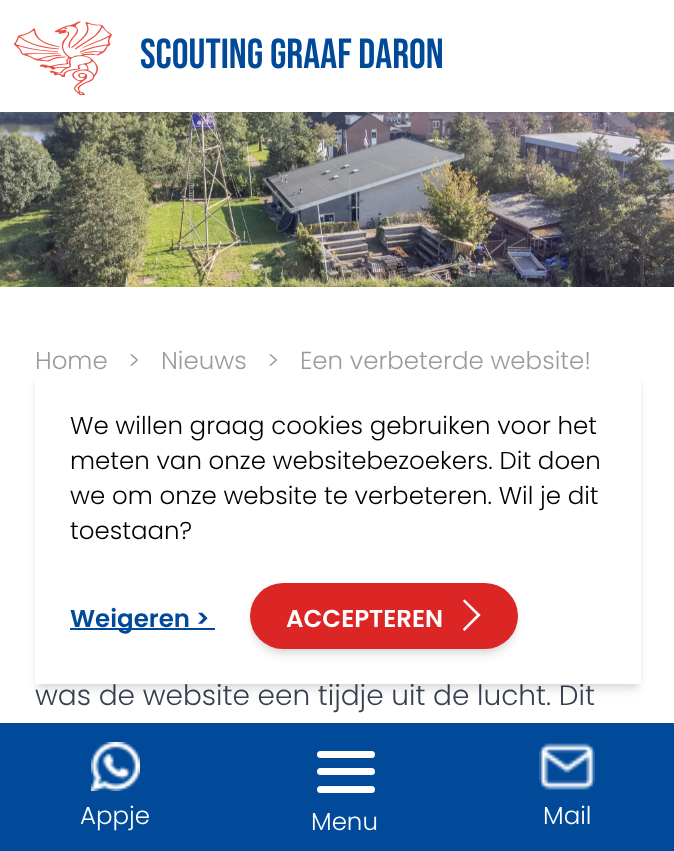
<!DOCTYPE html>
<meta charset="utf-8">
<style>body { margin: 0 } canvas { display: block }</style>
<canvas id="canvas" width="674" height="851"></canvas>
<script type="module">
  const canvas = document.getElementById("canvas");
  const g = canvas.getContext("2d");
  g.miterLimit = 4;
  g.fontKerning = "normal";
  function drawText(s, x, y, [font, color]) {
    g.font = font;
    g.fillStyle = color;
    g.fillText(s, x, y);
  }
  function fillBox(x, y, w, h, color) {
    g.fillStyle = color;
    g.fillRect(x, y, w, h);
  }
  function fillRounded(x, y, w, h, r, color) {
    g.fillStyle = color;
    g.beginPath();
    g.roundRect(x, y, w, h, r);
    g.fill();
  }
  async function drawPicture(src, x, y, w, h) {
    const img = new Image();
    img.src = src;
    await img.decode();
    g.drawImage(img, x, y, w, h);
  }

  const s1 = ["42px Bebas Neue", "#004A99"];
  const s2 = ["300 24.5px Poppins", "#9C9C9C"];
  const s3 = ["300 28px Poppins", "#374151"];
  const s4 = ["300 24.5px Poppins", "#FFFFFF"];
  const s5 = ["300 24.5px Poppins", "#000000"];
  const s6 = ["600 24.5px Poppins", "#004A99"];
  const s7 = ["600 24.5px Poppins", "#FFFFFF"];

  fillBox(0, 0, 674, 851, "#FFFFFF");
  await drawPicture("pic2.png", 0, 112, 674, 175);
  g.save();
  g.beginPath();
  g.rect(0, 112, 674, 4);
  g.clip();
  g.fillStyle = "rgba(0, 0, 0, 0.1)";
  g.filter = "blur(2.5px)";
  g.beginPath();
  g.rect(0, 2, 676, 112);
  g.fill();
  g.filter = "none";
  g.restore();
  await drawPicture("pic1.png", 14, 21, 98, 74);
  drawText("Scouting Graaf Daron", 140, 68, s1);
  drawText("Home", 35, 369, s2);
  drawText(">", 128, 369, s2);
  drawText("Nieuws", 161, 369, s2);
  drawText(">", 267, 369, s2);
  drawText("Een verbeterde website!", 300, 369, s2);
  drawText("was de website een tijdje uit de lucht. Dit", 35, 705, s3);
  fillBox(0, 723, 674, 128, "#004A99");
  await drawPicture("pic3.png", 91, 742, 49, 49);
  drawText("Appje", 80, 824, s4);
  fillRounded(317, 786, 58, 7, 3.5, "#FFFFFF");
  fillRounded(317, 751, 58, 7, 3.5, "#FFFFFF");
  fillRounded(317, 768, 58, 7, 3.5, "#FFFFFF");
  drawText("Menu", 311, 830, s4);
  await drawPicture("pic4.png", 539, 743, 56, 47);
  drawText("Mail", 543, 824, s4);
  g.fillStyle = "rgba(0, 0, 0, 0.1)";
  g.filter = "blur(3.5px)";
  g.beginPath();
  g.rect(39, 380, 598, 304);
  g.fill();
  g.filter = "none";
  g.filter = "blur(5px)";
  g.beginPath();
  g.rect(37, 382, 602, 308);
  g.fill();
  g.filter = "none";
  fillBox(35, 374, 606, 310, "#FFFFFF");
  drawText("We willen graag cookies gebruiken voor het", 70, 434, s5);
  drawText("meten van onze websitebezoekers. Dit doen", 70, 469, s5);
  drawText("we om onze website te verbeteren. Wil je dit", 70, 504, s5);
  drawText("toestaan?", 70, 539, s5);
  fillBox(70, 628, 145, 2, "#004A99");
  drawText("Weigeren >", 70, 627, s6);
  g.fillStyle = "rgba(0, 0, 0, 0.1)";
  g.filter = "blur(3.5px)";
  g.beginPath();
  g.roundRect(254, 590, 261, 59, 29.5);
  g.fill();
  g.filter = "none";
  g.filter = "blur(5px)";
  g.beginPath();
  g.roundRect(252, 592, 264, 63, 31.5);
  g.fill();
  g.filter = "none";
  fillRounded(250, 583, 268, 66, 33, "#DC2626");
  drawText("ACCEPTEREN", 286, 627, s7);
  g.beginPath();
  g.moveTo(461.5, 629);
  g.lineTo(475.5, 615);
  g.lineTo(461.5, 601);
  g.lineTo(464.5, 598);
  g.lineTo(482, 615);
  g.lineTo(464.5, 632.5);
  g.closePath();
  g.fill();
  g.strokeStyle = "#DC2626";
  g.lineWidth = 1.8;
  g.stroke();
</script>
